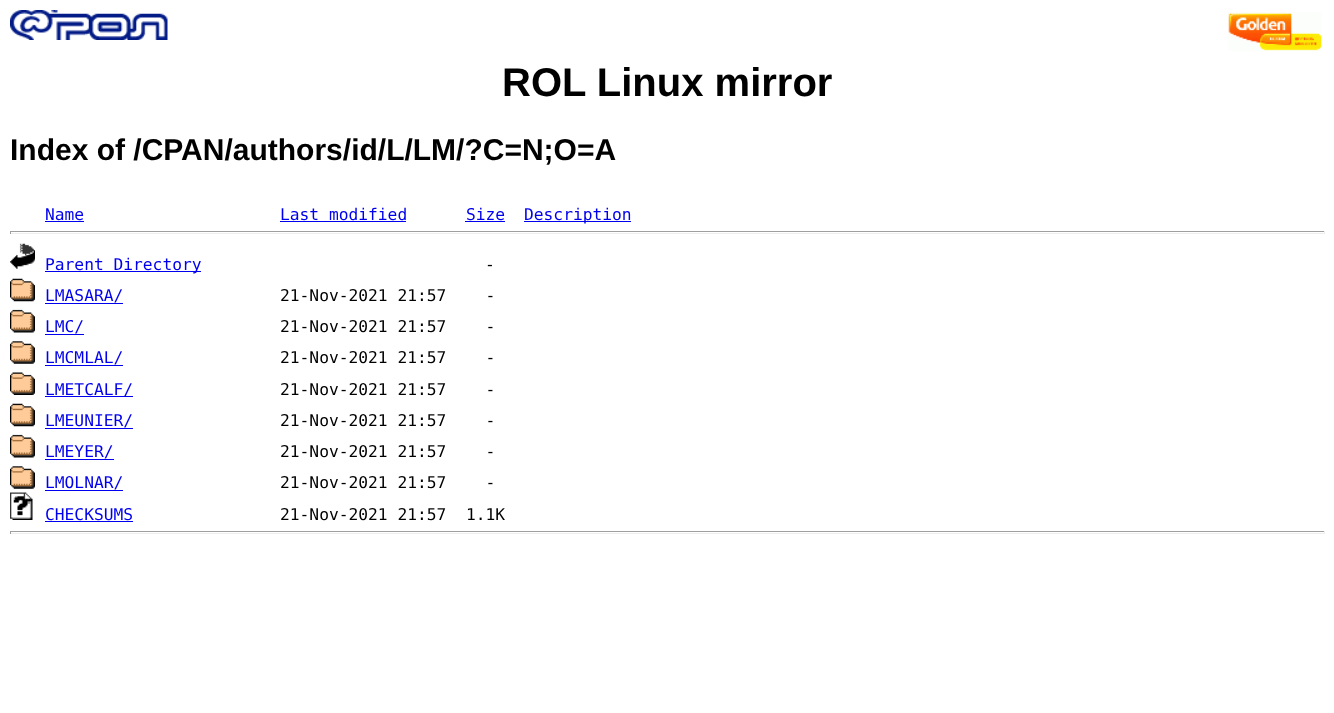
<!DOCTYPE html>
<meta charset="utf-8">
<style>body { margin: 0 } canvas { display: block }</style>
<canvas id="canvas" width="1334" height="713"></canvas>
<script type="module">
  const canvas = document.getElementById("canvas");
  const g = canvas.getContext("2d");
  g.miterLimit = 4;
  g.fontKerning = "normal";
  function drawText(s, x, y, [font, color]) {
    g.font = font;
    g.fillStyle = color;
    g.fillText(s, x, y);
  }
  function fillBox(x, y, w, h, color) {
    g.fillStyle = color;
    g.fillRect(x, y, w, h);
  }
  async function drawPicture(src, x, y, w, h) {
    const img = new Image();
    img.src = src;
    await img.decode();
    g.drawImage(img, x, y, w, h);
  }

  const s1 = ["bold 40px Liberation Sans", "#000000"];
  const s2 = ["bold 30px Liberation Sans", "#000000"];
  const s3 = ["16.25px DejaVu Sans Mono", "#0000EE"];
  const s4 = ["16.25px DejaVu Sans Mono", "#000000"];

  fillBox(0, 0, 1334, 713, "#FFFFFF");
  await drawPicture("pic1.png", 10, 10, 158, 30);
  await drawPicture("pic2.png", 1228, 12, 94, 39);
  drawText("ROL Linux mirror", 502, 96, s1);
  drawText("Index of /CPAN/authors/id/L/LM/?C=N;O=A", 10, 160, s2);
  drawText("Name", 45, 220, s3);
  fillBox(45, 221, 39, 1, "#0000EE");
  drawText("Last modified", 280, 220, s3);
  fillBox(280, 221, 126, 1, "#0000EE");
  drawText("Size", 466, 220, s3);
  fillBox(465, 221, 40, 1, "#0000EE");
  fillBox(524, 221, 107, 1, "#0000EE");
  drawText("Description", 524, 220, s3);
  fillBox(10, 231, 1315, 1, "#9F9F9F");
  fillBox(1324, 231, 1, 3, "#EEEEEE");
  fillBox(10, 233, 1315, 1, "#EEEEEE");
  fillBox(10, 231, 1, 3, "#9F9F9F");
  await drawPicture("pic3.png", 10, 243, 25, 26);
  fillBox(45, 271, 156, 1, "#0000EE");
  drawText("Parent Directory", 45, 270, s3);
  drawText("-", 485, 270, s4);
  await drawPicture("pic4.png", 10, 278, 25, 24);
  drawText("LMASARA/", 45, 301, s3);
  fillBox(45, 303, 78, 1, "#0000EE");
  drawText("21-Nov-2021 21:57    -", 280, 301, s4);
  await drawPicture("pic5.png", 10, 309, 25, 24);
  drawText("LMC/", 45, 332, s3);
  fillBox(45, 334, 39, 1, "#0000EE");
  drawText("21-Nov-2021 21:57    -", 280, 332, s4);
  await drawPicture("pic6.png", 10, 341, 25, 23);
  drawText("LMCMLAL/", 45, 363, s3);
  fillBox(45, 365, 78, 1, "#0000EE");
  drawText("21-Nov-2021 21:57    -", 280, 363, s4);
  await drawPicture("pic7.png", 10, 372, 25, 23);
  fillBox(45, 396, 88, 1, "#0000EE");
  drawText("LMETCALF/", 45, 395, s3);
  drawText("21-Nov-2021 21:57    -", 280, 395, s4);
  await drawPicture("pic4.png", 10, 403, 25, 24);
  drawText("LMEUNIER/", 45, 426, s3);
  fillBox(45, 428, 88, 1, "#0000EE");
  drawText("21-Nov-2021 21:57    -", 280, 426, s4);
  await drawPicture("pic5.png", 10, 434, 25, 24);
  drawText("LMEYER/", 45, 457, s3);
  fillBox(45, 459, 69, 1, "#0000EE");
  drawText("21-Nov-2021 21:57    -", 280, 457, s4);
  await drawPicture("pic6.png", 10, 466, 25, 23);
  drawText("LMOLNAR/", 45, 488, s3);
  fillBox(45, 490, 78, 1, "#0000EE");
  drawText("21-Nov-2021 21:57    -", 280, 488, s4);
  await drawPicture("pic8.png", 10, 492, 23, 28);
  drawText("CHECKSUMS", 45, 520, s3);
  fillBox(45, 521, 88, 1, "#0000EE");
  drawText("21-Nov-2021 21:57  1.1K", 280, 520, s4);
  fillBox(10, 531, 1315, 1, "#9F9F9F");
  fillBox(1324, 531, 1, 3, "#EEEEEE");
  fillBox(10, 533, 1315, 1, "#EEEEEE");
  fillBox(10, 531, 1, 3, "#9F9F9F");
</script>
